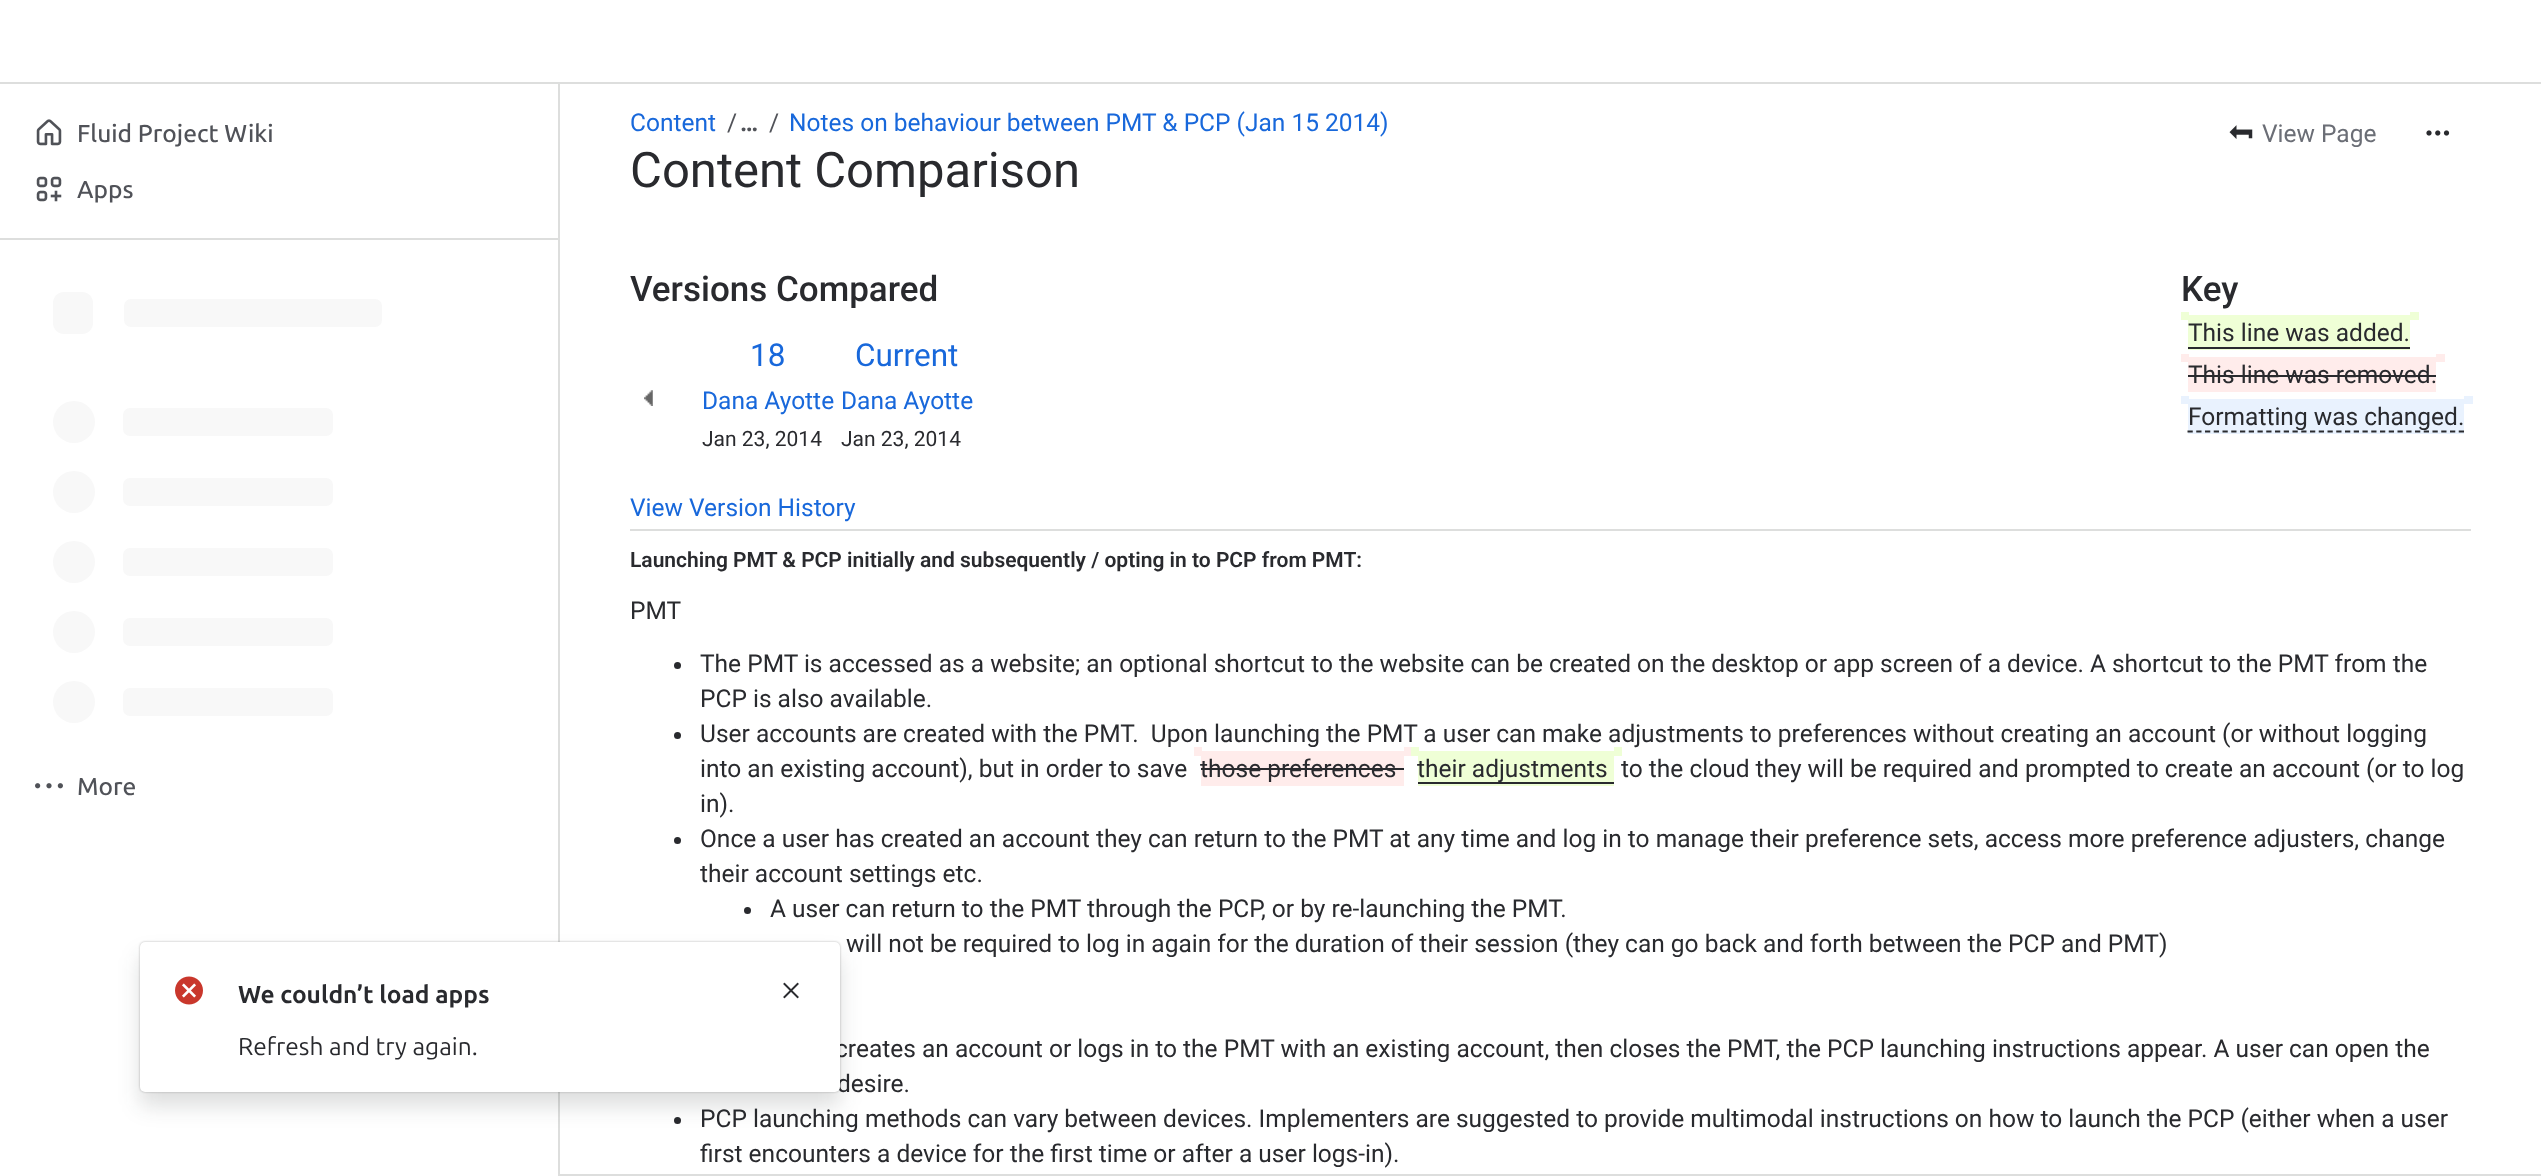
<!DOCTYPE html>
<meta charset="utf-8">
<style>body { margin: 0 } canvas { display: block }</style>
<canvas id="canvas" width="2541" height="1176"></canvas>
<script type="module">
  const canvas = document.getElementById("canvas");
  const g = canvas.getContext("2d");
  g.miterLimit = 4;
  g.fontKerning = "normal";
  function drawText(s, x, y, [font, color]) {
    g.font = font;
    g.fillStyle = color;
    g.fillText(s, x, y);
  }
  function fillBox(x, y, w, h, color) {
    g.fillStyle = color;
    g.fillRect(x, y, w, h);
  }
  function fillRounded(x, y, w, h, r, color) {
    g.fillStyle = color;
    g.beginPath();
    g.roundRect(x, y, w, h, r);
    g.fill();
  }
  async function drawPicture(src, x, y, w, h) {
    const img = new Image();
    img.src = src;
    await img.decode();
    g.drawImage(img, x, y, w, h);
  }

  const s1 = ["500 24.5px Ubuntu", "#505258"];
  const s2 = ["24.5px Roboto", "#1868DB"];
  const s3 = ["24.5px Roboto", "#505258"];
  const s4 = ["bold 24.5px Roboto", "#505258"];
  const s5 = ["49px Roboto", "#292A2E"];
  const s6 = ["24.5px Roboto", "#6B6E76"];
  const s7 = ["500 35px Roboto", "#292A2E"];
  const s8 = ["24.5px Roboto", "#292A2E"];
  const s9 = ["31.5px Roboto", "#1868DB"];
  const s10 = ["21px Roboto", "#292A2E"];
  const s11 = ["600 21px Roboto", "#292A2E"];
  const s12 = ["bold 24.5px Ubuntu", "#292A2E"];
  const s13 = ["24.5px Ubuntu", "#292A2E"];

  fillBox(0, 0, 2541, 1176, "#FFFFFF");
  fillBox(0, 82, 2541, 2, "#DDDEDD");
  fillBox(558, 84, 2, 1092, "#DDDEDD");
  await drawPicture("pic1.png", 36, 119, 26, 27);
  drawText("Fluid Project Wiki", 77, 142, s1);
  await drawPicture("pic2.png", 36, 176, 26, 26);
  drawText("Apps", 77, 198, s1);
  fillBox(0, 238, 558, 2, "#DDDEDD");
  fillRounded(53, 292, 40, 42, 11, "#F8F8F8");
  fillRounded(124, 299, 258, 28, 7, "#F8F8F8");
  g.beginPath();
  g.arc(74, 422, 21, 0, Math.PI * 2);
  g.fill();
  fillRounded(123, 408, 210, 28, 7, "#F8F8F8");
  g.beginPath();
  g.arc(74, 492, 21, 0, Math.PI * 2);
  g.fill();
  fillRounded(123, 478, 210, 28, 7, "#F8F8F8");
  g.beginPath();
  g.arc(74, 562, 21, 0, Math.PI * 2);
  g.fill();
  fillRounded(123, 548, 210, 28, 7, "#F8F8F8");
  g.beginPath();
  g.arc(74, 632, 21, 0, Math.PI * 2);
  g.fill();
  fillRounded(123, 618, 210, 28, 7, "#F8F8F8");
  g.beginPath();
  g.arc(74, 702, 21, 0, Math.PI * 2);
  g.fill();
  fillRounded(123, 688, 210, 28, 7, "#F8F8F8");
  await drawPicture("pic3.png", 35, 783, 28, 6);
  drawText("More", 77, 795, s1);
  fillBox(560, 1174, 1981, 2, "#DDDEDD");
  drawText("Content", 630, 131, s2);
  drawText("/", 727, 131, s3);
  drawText("…", 740, 131, s4);
  drawText("/", 769, 131, s3);
  drawText("Notes on behaviour between PMT & PCP (Jan 15 2014)", 789, 131, s2);
  drawText("Content Comparison", 630, 187, s5);
  await drawPicture("pic4.png", 2229, 125, 24, 14);
  drawText("View Page", 2262, 142, s6);
  await drawPicture("pic5.png", 2426, 130, 24, 6);
  fillBox(630, 529, 1841, 2, "#DDDEDD");
  drawText("Versions Compared", 630, 301, s7);
  drawText("Key", 2181, 301, s7);
  fillBox(2181, 312, 8, 8, "#EFFFD6");
  fillBox(2188, 315, 222, 35, "#EFFFD6");
  drawText("This line was added.", 2188, 341, s8);
  fillBox(2410, 312, 9, 8, "#EFFFD6");
  fillBox(2188, 347, 222, 2, "#292A2E");
  fillBox(2181, 354, 8, 8, "#FFECEB");
  fillBox(2188, 357, 248, 35, "#FFECEB");
  drawText("This line was removed.", 2188, 383, s8);
  fillBox(2436, 354, 9, 8, "#FFECEB");
  fillBox(2188, 375, 248, 2, "#292A2E");
  fillBox(2181, 396, 8, 8, "#E9F2FE");
  fillBox(2188, 399, 276, 35, "#E9F2FE");
  g.beginPath();
  g.moveTo(2187.5, 431.5);
  g.lineTo(2464, 431.5);
  g.strokeStyle = "#292A2E";
  g.lineWidth = 1.8;
  g.setLineDash([5.25, 3.5]);
  g.stroke();
  drawText("Formatting was changed.", 2188, 425, s8);
  fillBox(2464, 396, 9, 8, "#E9F2FE");
  drawText("18", 750, 366, s9);
  drawText("Current", 855, 366, s9);
  drawText("Dana Ayotte", 702, 409, s2);
  drawText("Dana Ayotte", 841, 409, s2);
  drawText("Jan 23, 2014", 702, 446, s10);
  drawText("Jan 23, 2014", 841, 446, s10);
  await drawPicture("pic6.png", 644, 390, 9, 16);
  drawText("View Version History", 630, 516, s2);
  drawText("Launching PMT & PCP initially and subsequently / opting in to PCP from PMT:", 630, 567, s11);
  drawText("PMT", 630, 619, s8);
  g.beginPath();
  g.arc(677.5, 665.5, 3.5, 0, Math.PI * 2);
  g.fill();
  drawText("The PMT is accessed as a website; an optional shortcut to the website can be created on the desktop or app screen of a device. A shortcut to the PMT from the", 700, 672, s8);
  drawText("PCP is also available.", 700, 707, s8);
  g.beginPath();
  g.arc(677.5, 735.5, 3.5, 0, Math.PI * 2);
  g.fill();
  drawText("User accounts are created with the PMT.  Upon launching the PMT a user can make adjustments to preferences without creating an account (or without logging", 700, 742, s8);
  drawText("into an existing account), but in order to save", 700, 777, s8);
  fillBox(1194, 747, 8, 9, "#FFECEB");
  fillBox(1201, 751, 203, 35, "#FFECEB");
  drawText("those preferences", 1200, 777, s8);
  fillBox(1404, 747, 7, 9, "#FFECEB");
  fillBox(1201, 768, 203, 2, "#292A2E");
  fillBox(1411, 747, 8, 9, "#EFFFD6");
  fillBox(1418, 751, 196, 35, "#EFFFD6");
  fillBox(1418, 782, 196, 2, "#292A2E");
  drawText("their adjustments", 1417, 777, s8);
  fillBox(1614, 747, 8, 9, "#EFFFD6");
  drawText("to the cloud they will be required and prompted to create an account (or to log", 1621, 777, s8);
  drawText("in).", 700, 812, s8);
  g.beginPath();
  g.arc(677.5, 840.5, 3.5, 0, Math.PI * 2);
  g.fill();
  drawText("Once a user has created an account they can return to the PMT at any time and log in to manage their preference sets, access more preference adjusters, change", 700, 847, s8);
  drawText("their account settings etc.", 700, 882, s8);
  g.beginPath();
  g.arc(747.5, 910.5, 3.5, 0, Math.PI * 2);
  g.fill();
  drawText("A user can return to the PMT through the PCP, or by re-launching the PMT.", 770, 917, s8);
  drawText("will not be required to log in again for the duration of their session (they can go back and forth between the PCP and PMT)", 846, 952, s8);
  drawText("creates an account or logs in to the PMT with an existing account, then closes the PMT, the PCP launching instructions appear. A user can open the", 835, 1057, s8);
  drawText("desire.", 837, 1092, s8);
  g.beginPath();
  g.arc(677.5, 1120.5, 3.5, 0, Math.PI * 2);
  g.fill();
  drawText("PCP launching methods can vary between devices. Implementers are suggested to provide multimodal instructions on how to launch the PCP (either when a user", 700, 1127, s8);
  drawText("first encounters a device for the first time or after a user logs-in).", 700, 1162, s8);
  g.fillStyle = "rgba(30, 31, 33, 0.31)";
  g.filter = "blur(1px)";
  g.beginPath();
  g.roundRect(140, 942, 700, 150, 5);
  g.fill();
  g.filter = "none";
  g.fillStyle = "rgba(30, 31, 33, 0.15)";
  g.filter = "blur(10.5px)";
  g.beginPath();
  g.roundRect(140, 956, 700, 150, 5);
  g.fill();
  g.filter = "none";
  fillRounded(140, 942, 700, 150, 5, "#FFFFFF");
  await drawPicture("pic7.png", 175, 976, 28, 29);
  drawText("We couldn’t load apps", 238, 1003, s12);
  await drawPicture("pic8.png", 783, 982, 16, 17);
  drawText("Refresh and try again.", 238, 1055, s13);
</script>
